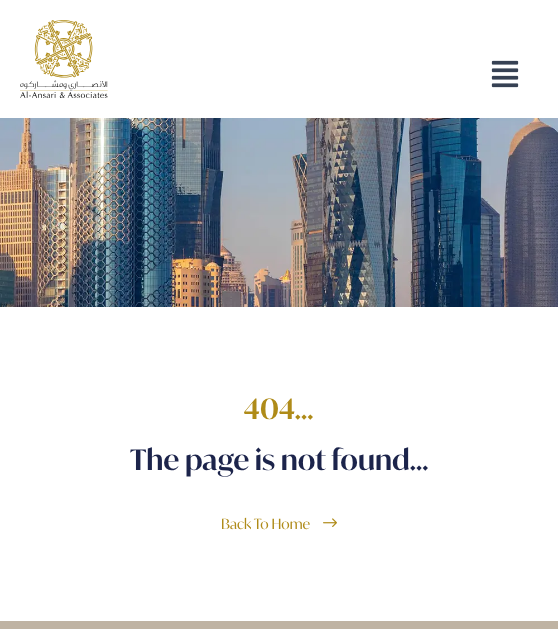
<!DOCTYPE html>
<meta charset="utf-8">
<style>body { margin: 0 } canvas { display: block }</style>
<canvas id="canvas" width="558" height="629"></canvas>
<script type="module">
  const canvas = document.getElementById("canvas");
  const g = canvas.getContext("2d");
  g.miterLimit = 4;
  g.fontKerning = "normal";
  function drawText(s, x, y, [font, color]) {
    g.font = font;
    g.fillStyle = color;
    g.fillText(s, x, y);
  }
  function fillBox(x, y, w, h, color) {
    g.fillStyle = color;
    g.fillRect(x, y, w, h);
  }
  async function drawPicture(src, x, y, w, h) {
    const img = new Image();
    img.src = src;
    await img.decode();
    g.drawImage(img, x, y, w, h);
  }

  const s1 = ["600 28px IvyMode", "#AF8B18"];
  const s2 = ["600 28px IvyMode", "#1C244B"];
  const s3 = ["14px IvyMode", "#AF8B18"];

  fillBox(0, 0, 558, 629, "#FFFFFF");
  await drawPicture("pic1.png", 20, 20, 88, 78);
  await drawPicture("pic2.png", 491, 60, 28, 28);
  await drawPicture("pic3.png", 0, 118, 558, 189);
  drawText("404...", 244, 419, s1);
  drawText("The page is not found...", 130, 470, s2);
  drawText("Back To Home", 221, 529, s3);
  await drawPicture("pic4.png", 323, 518, 14, 9);
  fillBox(0, 621, 558, 8, "#BFB3A3");
</script>
